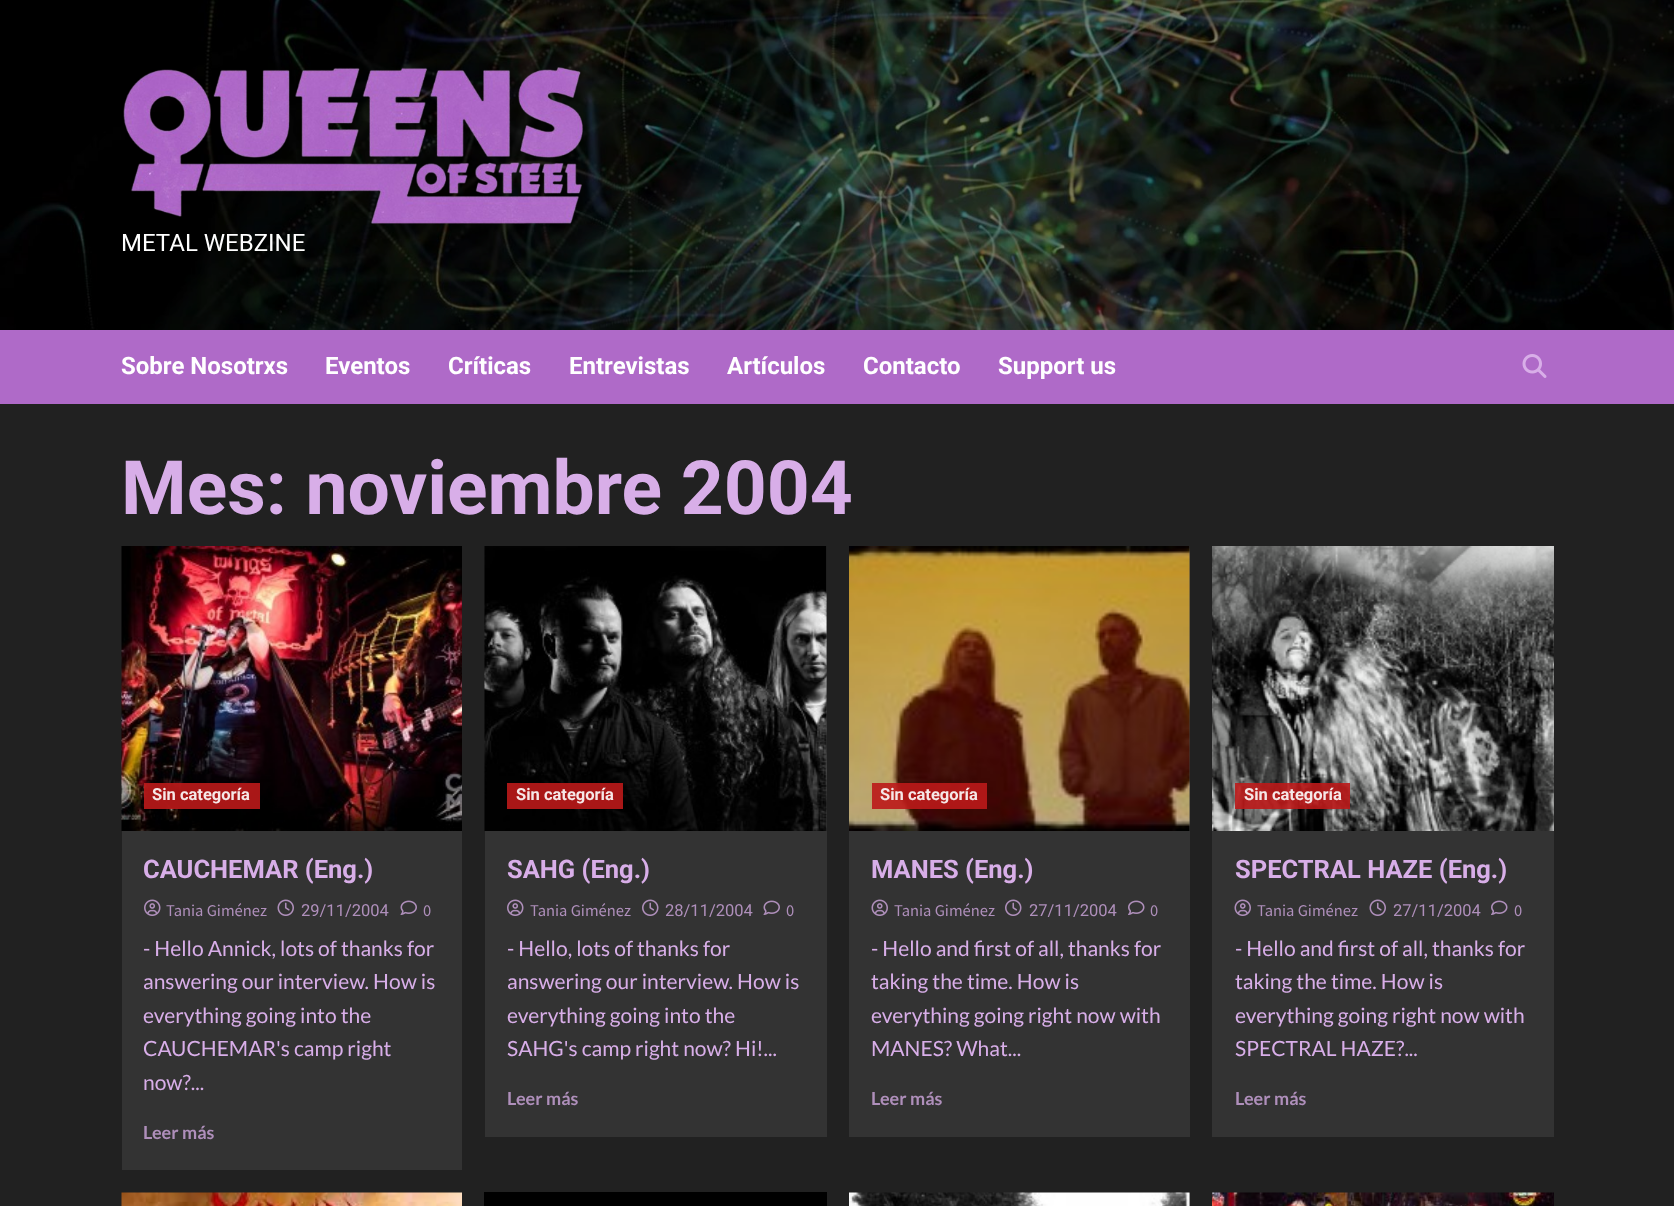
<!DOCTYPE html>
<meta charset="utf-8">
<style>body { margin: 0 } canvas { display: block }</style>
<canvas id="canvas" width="1674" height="1206"></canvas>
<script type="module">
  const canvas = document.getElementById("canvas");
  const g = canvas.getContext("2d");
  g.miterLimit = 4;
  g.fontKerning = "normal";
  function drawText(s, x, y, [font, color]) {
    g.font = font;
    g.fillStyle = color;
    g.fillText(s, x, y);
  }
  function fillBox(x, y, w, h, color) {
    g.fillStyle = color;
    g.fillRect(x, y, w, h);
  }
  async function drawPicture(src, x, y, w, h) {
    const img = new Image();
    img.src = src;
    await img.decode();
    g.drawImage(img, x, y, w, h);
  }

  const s1 = ["24px Roboto", "#FFFFFF"];
  const s2 = ["bold 24px Roboto", "#FFFFFF"];
  const s3 = ["bold 75px Roboto", "#D8AEE8"];
  const s4 = ["bold 16.5px Roboto", "#F6E8E8"];
  const s5 = ["bold 25.5px Roboto", "#D8AEE8"];
  const s6 = ["16.5px Source Sans Pro", "#AF8FBB"];
  const s7 = ["16.5px Roboto", "#AF8FBB"];
  const s8 = ["21px Lato", "#D8AEE8"];
  const s9 = ["bold 18px Lato", "#AF8FBB"];

  fillBox(0, 0, 1674, 1206, "#212121");
  await drawPicture("pic1.png", 0, 0, 1674, 330);
  await drawPicture("pic2.png", 123, 67, 461, 157);
  drawText("METAL WEBZINE", 121, 251, s1);
  fillBox(0, 330, 1674, 74, "#AF6AC8");
  drawText("Sobre Nosotrxs", 121, 374, s2);
  drawText("Eventos", 325, 374, s2);
  drawText("Críticas", 448, 374, s2);
  drawText("Entrevistas", 569, 374, s2);
  drawText("Artículos", 727, 374, s2);
  drawText("Contacto", 863, 374, s2);
  drawText("Support us", 998, 374, s2);
  await drawPicture("pic3.png", 1522, 354, 25, 24);
  drawText("Mes: noviembre 2004", 121, 514, s3);
  fillBox(122, 831, 340, 339, "#333333");
  await drawPicture("pic4.png", 121, 546, 341, 285);
  fillBox(144, 783, 116, 26, "rgba(187, 25, 25, 0.9)");
  drawText("Sin categoría", 152, 800, s4);
  drawText("CAUCHEMAR (Eng.)", 143, 878, s5);
  await drawPicture("pic5.png", 144, 899, 17, 17);
  drawText("Tania Giménez", 166, 916, s6);
  await drawPicture("pic6.png", 277, 899, 17, 17);
  drawText("29/11/2004", 301, 916, s7);
  await drawPicture("pic7.png", 400, 900, 17, 15);
  drawText("0", 423, 916, s6);
  drawText("- Hello Annick, lots of thanks for", 143, 956, s8);
  drawText("answering our interview. How is", 143, 989, s8);
  drawText("everything going into the", 143, 1023, s8);
  drawText("CAUCHEMAR's camp right", 143, 1056, s8);
  drawText("now?...", 143, 1090, s8);
  drawText("Leer más", 143, 1139, s9);
  fillBox(485, 831, 342, 306, "#333333");
  fillBox(826, 546, 1, 285, "#3D3D3D");
  await drawPicture("pic8.png", 484, 546, 343, 285);
  fillBox(507, 783, 116, 26, "rgba(187, 25, 25, 0.9)");
  drawText("Sin categoría", 516, 800, s4);
  drawText("SAHG (Eng.)", 507, 878, s5);
  await drawPicture("pic5.png", 507, 899, 17, 17);
  drawText("Tania Giménez", 530, 916, s6);
  await drawPicture("pic9.png", 642, 899, 17, 17);
  drawText("28/11/2004", 665, 916, s7);
  await drawPicture("pic7.png", 763, 900, 17, 15);
  drawText("0", 786, 916, s6);
  drawText("- Hello, lots of thanks for", 507, 956, s8);
  drawText("answering our interview. How is", 507, 989, s8);
  drawText("everything going into the", 507, 1023, s8);
  drawText("SAHG's camp right now? Hi!...", 507, 1056, s8);
  drawText("Leer más", 507, 1105, s9);
  fillBox(849, 831, 341, 306, "#333333");
  fillBox(1189, 546, 1, 285, "#3D3D3D");
  await drawPicture("pic10.png", 849, 546, 341, 285);
  fillBox(872, 783, 115, 26, "rgba(187, 25, 25, 0.9)");
  drawText("Sin categoría", 880, 800, s4);
  drawText("MANES (Eng.)", 871, 878, s5);
  await drawPicture("pic11.png", 871, 899, 17, 17);
  drawText("Tania Giménez", 894, 916, s6);
  await drawPicture("pic9.png", 1005, 899, 17, 17);
  drawText("27/11/2004", 1029, 916, s7);
  await drawPicture("pic12.png", 1128, 900, 17, 15);
  drawText("0", 1150, 916, s6);
  drawText("- Hello and first of all, thanks for", 871, 956, s8);
  drawText("taking the time. How is", 871, 989, s8);
  drawText("everything going right now with", 871, 1023, s8);
  drawText("MANES? What...", 871, 1056, s8);
  drawText("Leer más", 871, 1105, s9);
  fillBox(1212, 831, 342, 306, "#333333");
  await drawPicture("pic13.png", 1212, 546, 342, 285);
  fillBox(1235, 783, 115, 26, "rgba(187, 25, 25, 0.9)");
  drawText("Sin categoría", 1244, 800, s4);
  drawText("SPECTRAL HAZE (Eng.)", 1235, 878, s5);
  await drawPicture("pic11.png", 1234, 899, 17, 17);
  drawText("Tania Giménez", 1257, 916, s6);
  await drawPicture("pic6.png", 1369, 899, 17, 17);
  drawText("27/11/2004", 1393, 916, s7);
  await drawPicture("pic12.png", 1491, 900, 17, 15);
  drawText("0", 1514, 916, s6);
  drawText("- Hello and first of all, thanks for", 1235, 956, s8);
  drawText("taking the time. How is", 1235, 989, s8);
  drawText("everything going right now with", 1235, 1023, s8);
  drawText("SPECTRAL HAZE?...", 1235, 1056, s8);
  drawText("Leer más", 1235, 1105, s9);
  await drawPicture("pic14.png", 121, 1192, 341, 14);
  fillBox(484, 1192, 343, 14, "#000000");
  fillBox(1189, 1193, 1, 13, "#3D3D3D");
  await drawPicture("pic15.png", 849, 1192, 341, 14);
  await drawPicture("pic16.png", 1212, 1192, 342, 14);
</script>
